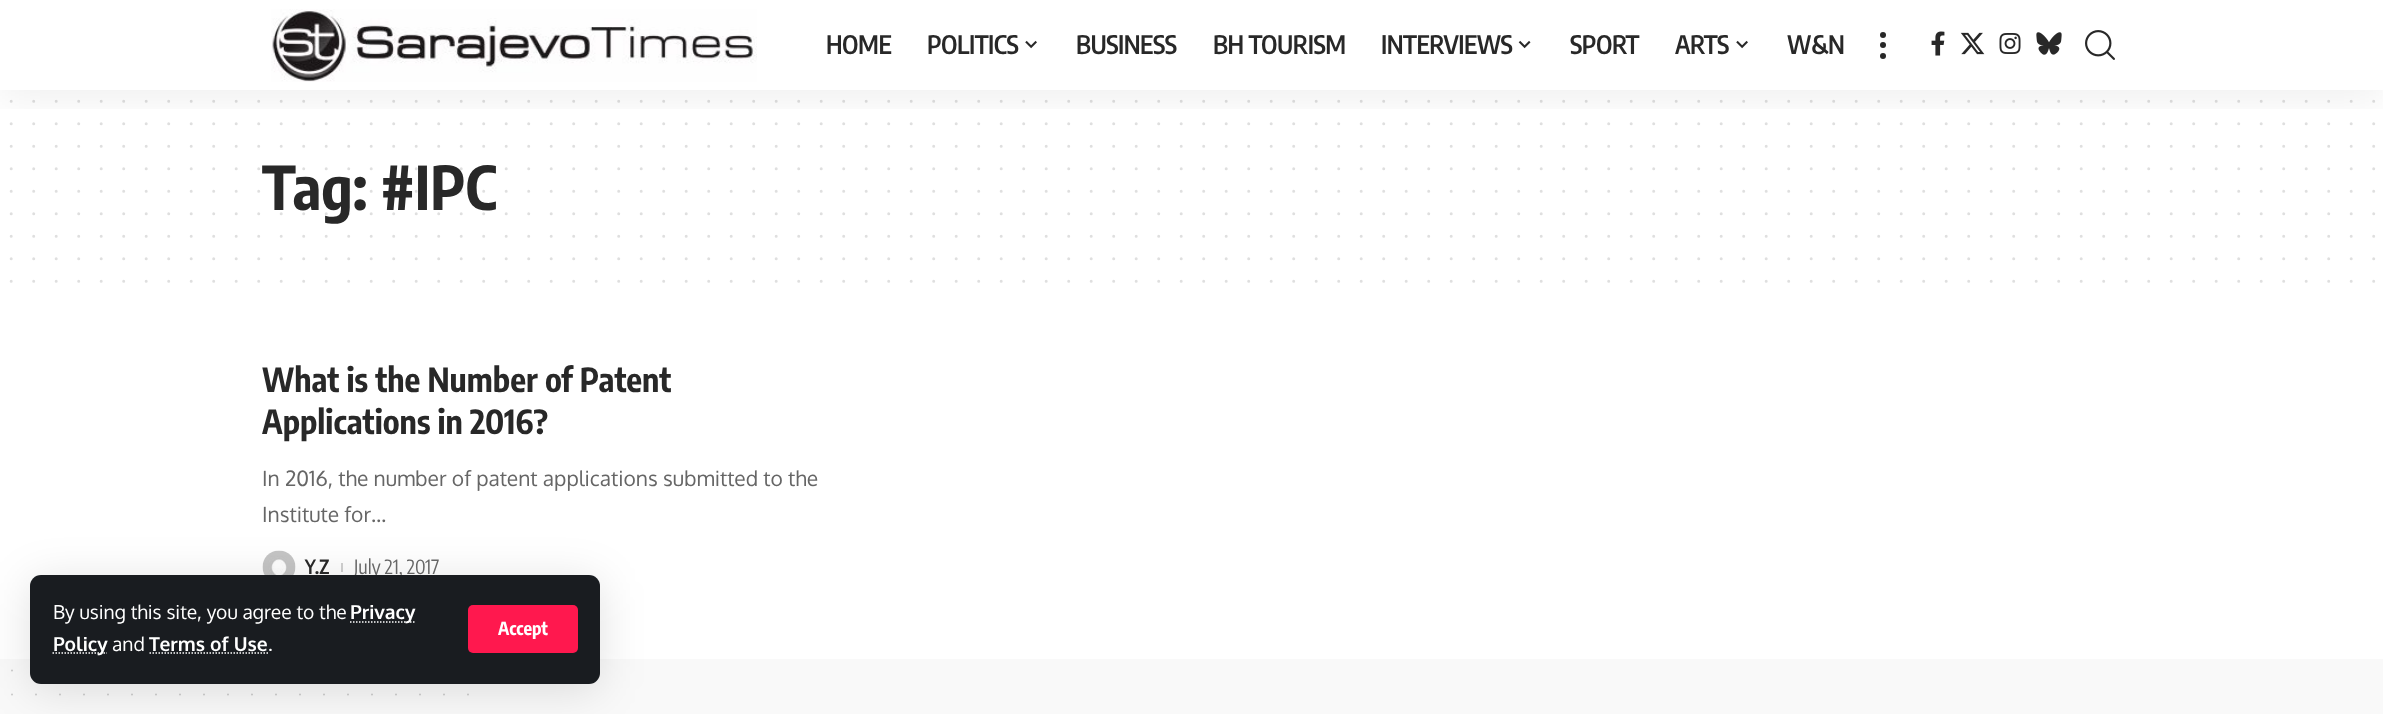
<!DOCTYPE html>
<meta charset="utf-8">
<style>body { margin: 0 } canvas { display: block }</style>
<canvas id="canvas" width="2383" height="714"></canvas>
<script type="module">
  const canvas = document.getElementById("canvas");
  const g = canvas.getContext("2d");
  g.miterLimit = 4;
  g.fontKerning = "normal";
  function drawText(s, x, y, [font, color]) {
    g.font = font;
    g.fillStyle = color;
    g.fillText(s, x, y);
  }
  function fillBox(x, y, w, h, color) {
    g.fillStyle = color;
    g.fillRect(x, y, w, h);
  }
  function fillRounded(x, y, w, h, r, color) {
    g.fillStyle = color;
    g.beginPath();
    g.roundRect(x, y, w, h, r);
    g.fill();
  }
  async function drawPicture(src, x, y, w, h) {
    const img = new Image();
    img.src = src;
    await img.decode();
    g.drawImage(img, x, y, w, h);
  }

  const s1 = ["600 25.5px Encode Sans Condensed", "#282828"];
  const s2 = ["19.5px Encode Sans Condensed", "#666666"];
  const s3 = ["19.25px Oxygen", "#FFFFFF"];
  const s4 = ["bold 19.25px Oxygen", "#FFFFFF"];
  const s5 = ["bold 18px Encode Sans Condensed", "#FFFFFF"];
  const s6 = ["bold 60px Encode Sans Condensed", "#282828"];
  const s7 = ["bold 33px Encode Sans Condensed", "#282828"];
  const s8 = ["21px Oxygen", "#666666"];
  const s9 = ["600 19.5px Encode Sans Condensed", "#282828"];

  fillBox(0, 0, 2383, 714, "#FFFFFF");
  g.beginPath();
  g.moveTo(11.2, 101.2);
  g.lineTo(2374.1, 101.2);
  g.strokeStyle = "#DFDFDF";
  g.lineWidth = 3;
  g.lineCap = "round";
  g.setLineDash([0, 22.5]);
  g.stroke();
  g.beginPath();
  g.moveTo(11.2, 123.8);
  g.lineTo(2374.1, 123.8);
  g.stroke();
  g.beginPath();
  g.moveTo(11.2, 146.2);
  g.lineTo(2374.1, 146.2);
  g.stroke();
  g.save();
  g.beginPath();
  g.rect(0, 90, 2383, 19);
  g.clip();
  g.fillStyle = "rgba(0, 0, 0, 0.07)";
  g.filter = "blur(22.5px)";
  g.beginPath();
  g.rect(0, 6, 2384, 90);
  g.fill();
  g.filter = "none";
  g.restore();
  await drawPicture("pic1.png", 271, 9, 486, 73);
  g.letterSpacing = "-0.5px";
  drawText("HOME", 826, 54, s1);
  drawText("POLITICS", 927, 54, s1);
  await drawPicture("pic2.png", 1025, 40, 12, 9);
  drawText("BUSINESS", 1076, 54, s1);
  drawText("BH TOURISM", 1213, 54, s1);
  drawText("INTERVIEWS", 1381, 54, s1);
  await drawPicture("pic3.png", 1518, 40, 13, 9);
  drawText("SPORT", 1570, 54, s1);
  drawText("ARTS", 1675, 54, s1);
  await drawPicture("pic2.png", 1736, 40, 12, 9);
  drawText("W&N", 1787, 54, s1);
  g.beginPath();
  g.arc(1883, 35, 3, 0, Math.PI * 2);
  g.fill();
  g.beginPath();
  g.arc(1883, 45, 3, 0, Math.PI * 2);
  g.fill();
  g.beginPath();
  g.arc(1883, 56, 3, 0, Math.PI * 2);
  g.fill();
  await drawPicture("pic4.png", 1931, 31, 14, 25);
  await drawPicture("pic5.png", 1960, 32, 25, 23);
  await drawPicture("pic6.png", 1999, 33, 22, 21);
  await drawPicture("pic7.png", 2036, 32, 26, 23);
  await drawPicture("pic8.png", 2085, 30, 30, 30);
  await drawPicture("pic9.png", 262, 550, 34, 25);
  fillBox(341, 563, 2, 9, "#D1D1D1");
  fillBox(0, 659, 2383, 55, "#F9F9F9");
  g.beginPath();
  g.moveTo(12, 670.5);
  g.lineTo(468.3, 670.5);
  g.strokeStyle = "#CFCFCF";
  g.lineWidth = 2.2;
  g.setLineDash([0, 24]);
  g.stroke();
  g.beginPath();
  g.moveTo(12, 694.5);
  g.lineTo(468.3, 694.5);
  g.stroke();
  g.fillStyle = "rgba(0, 0, 0, 0.12)";
  g.filter = "blur(22.5px)";
  g.beginPath();
  g.roundRect(30, 581, 570, 109, 11);
  g.fill();
  g.filter = "none";
  g.letterSpacing = "0px";
  drawText("July 21, 2017", 354, 574, s2);
  fillRounded(30, 575, 570, 109, 11, "#191C20");
  drawText("By using this site, you agree to the", 53, 619, s3);
  g.beginPath();
  g.moveTo(350, 622);
  g.lineTo(415.5, 622);
  g.strokeStyle = "#FFFFFF";
  g.lineWidth = 1.5;
  g.lineCap = "butt";
  g.setLineDash([1.5, 1.5]);
  g.stroke();
  drawText("Privacy", 350, 619, s4);
  g.beginPath();
  g.moveTo(52.5, 653);
  g.lineTo(107, 653);
  g.stroke();
  drawText("Policy", 53, 651, s4);
  drawText("and", 112, 651, s3);
  drawText("Terms of Use", 149, 651, s4);
  g.beginPath();
  g.moveTo(149.5, 653);
  g.lineTo(268, 653);
  g.stroke();
  drawText(".", 268, 651, s3);
  fillRounded(468, 605, 110, 48, 5, "#FF184E");
  drawText("Accept", 498, 635, s5);
  drawText("Tag: #IPC", 262, 210, s6);
  g.beginPath();
  g.moveTo(11.2, 168.8);
  g.lineTo(2374.1, 168.8);
  g.strokeStyle = "rgba(40, 40, 40, 0.15)";
  g.lineWidth = 3;
  g.lineCap = "round";
  g.setLineDash([0, 22.5]);
  g.stroke();
  g.beginPath();
  g.moveTo(11.2, 191.2);
  g.lineTo(2374.1, 191.2);
  g.stroke();
  g.beginPath();
  g.moveTo(11.2, 213.8);
  g.lineTo(2374.1, 213.8);
  g.stroke();
  g.beginPath();
  g.moveTo(11.2, 236.2);
  g.lineTo(2374.1, 236.2);
  g.strokeStyle = "#DFDFDF";
  g.stroke();
  g.beginPath();
  g.moveTo(11.2, 258.8);
  g.lineTo(2374.1, 258.8);
  g.stroke();
  g.beginPath();
  g.moveTo(11.2, 281.2);
  g.lineTo(2374.1, 281.2);
  g.stroke();
  drawText("What is the Number of Patent", 262, 392, s7);
  drawText("Applications in 2016?", 262, 434, s7);
  drawText("In 2016, the number of patent applications submitted to the", 262, 486, s8);
  drawText("Institute for…", 262, 522, s8);
  drawText("Y.Z", 305, 574, s9);
</script>
